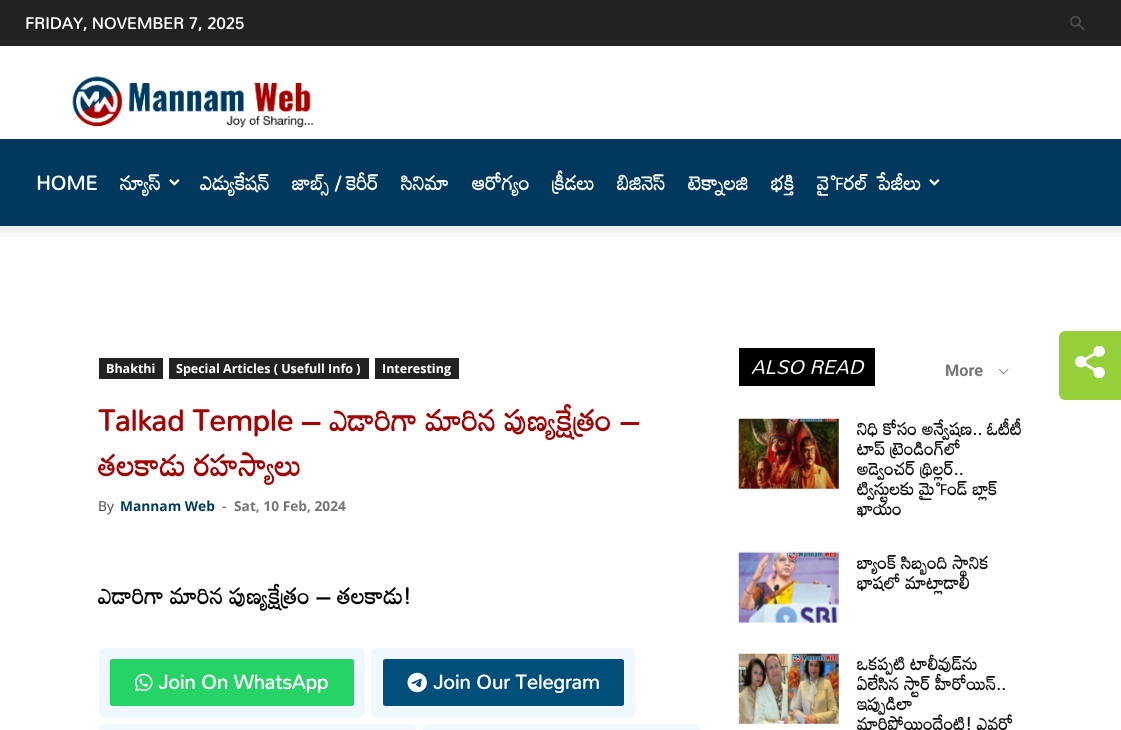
<!DOCTYPE html>
<meta charset="utf-8">
<style>body { margin: 0 } canvas { display: block }</style>
<canvas id="canvas" width="1121" height="730"></canvas>
<script type="module">
  const canvas = document.getElementById("canvas");
  const g = canvas.getContext("2d");
  g.miterLimit = 4;
  g.fontKerning = "normal";
  function drawText(s, x, y, [font, color]) {
    g.font = font;
    g.fillStyle = color;
    g.fillText(s, x, y);
  }
  function fillBox(x, y, w, h, color) {
    g.fillStyle = color;
    g.fillRect(x, y, w, h);
  }
  function fillRounded(x, y, w, h, r, color) {
    g.fillStyle = color;
    g.beginPath();
    g.roundRect(x, y, w, h, r);
    g.fill();
  }
  async function drawPicture(src, x, y, w, h) {
    const img = new Image();
    img.src = src;
    await img.decode();
    g.drawImage(img, x, y, w, h);
  }

  const s1 = ["bold 16.25px Mandali", "#FFFFFF"];
  const s2 = ["bold 20px Mandali", "#FFFFFF"];
  const s3 = ["bold 12.5px Open Sans", "#FFFFFF"];
  const s4 = ["bold 30px Mandali", "#A40001"];
  const s5 = ["13.75px Open Sans", "#444444"];
  const s6 = ["bold 13.75px Open Sans", "#01395E"];
  const s7 = ["bold 13.75px Open Sans", "#767676"];
  const s8 = ["bold 22.5px Mandali", "#000000"];
  const s9 = ["italic 20px Mandali", "#FFFFFF"];
  const s10 = ["bold 16.25px Roboto", "#767676"];
  const s11 = ["bold 17.5px Mandali", "#111111"];

  fillBox(0, 0, 1121, 730, "#FFFFFF");
  fillBox(0, 0, 1121, 46, "#222222");
  drawText("FRIDAY, NOVEMBER 7, 2025", 25, 29, s1);
  await drawPicture("pic1.png", 1070, 15, 15, 16);
  await drawPicture("pic2.png", 71, 75, 243, 53);
  fillBox(0, 139, 1121, 87, "#01395E");
  drawText("HOME", 36, 190, s2);
  drawText("న్యూస్", 120, 190, s2);
  await drawPicture("pic3.png", 169, 179, 11, 7);
  drawText("ఎడ్యుకేషన్", 200, 190, s2);
  drawText("జాబ్స్ / కెరీర్", 292, 190, s2);
  drawText("సినిమా", 401, 190, s2);
  drawText("ఆరోగ్యం", 472, 190, s2);
  drawText("క్రీడలు", 552, 190, s2);
  drawText("బిజినెస్", 617, 190, s2);
  drawText("టెక్నాలజి", 688, 190, s2);
  drawText("భక్తి", 771, 190, s2);
  drawText("వైరల్", 817, 190, s2);
  drawText("పేజీలు", 877, 190, s2);
  await drawPicture("pic3.png", 929, 179, 11, 7);
  await drawPicture("pic4.png", 0, 226, 1121, 11);
  fillBox(99, 358, 64, 21, "#222222");
  drawText("Bhakthi", 106, 373, s3);
  fillBox(169, 358, 200, 21, "#222222");
  drawText("Special Articles ( Usefull Info )", 176, 373, s3);
  fillBox(375, 358, 84, 21, "#222222");
  drawText("Interesting", 382, 373, s3);
  drawText("Talkad Temple – ఎడారిగా మారిన పుణ్యక్షేత్రం –", 98, 431, s4);
  drawText("తలకాడు రహస్యాలు", 98, 476, s4);
  drawText("By", 98, 511, s5);
  drawText("Mannam Web", 120, 511, s6);
  drawText("-", 222, 511, s5);
  drawText("Sat, 10 Feb, 2024", 234, 511, s7);
  drawText("ఎడారిగా మారిన పుణ్యక్షేత్రం – తలకాడు!", 98, 604, s8);
  fillRounded(99, 648, 266, 70, 6, "#F0F8FF");
  fillRounded(110, 659, 244, 47, 2.5, "#25D366");
  await drawPicture("pic5.png", 135, 673, 18, 19);
  drawText("Join On WhatsApp", 158, 689, s2);
  fillRounded(371, 648, 264, 70, 6, "#F0F8FF");
  fillRounded(383, 659, 241, 47, 2.5, "#004F7A");
  await drawPicture("pic6.png", 407, 672, 20, 21);
  drawText("Join Our Telegram", 433, 689, s2);
  fillRounded(99, 724, 317, 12, 6, "#F0F8FF");
  fillRounded(423, 724, 277, 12, 6, "#F0F8FF");
  fillBox(739, 348, 136, 38, "#000000");
  drawText("ALSO READ", 751, 374, s9);
  drawText("More", 945, 376, s10);
  await drawPicture("pic7.png", 998, 368, 11, 6);
  await drawPicture("pic8.png", 738, 418, 101, 71);
  drawText("నిధి కోసం అన్వేషణ.. ఓటీటీ", 857, 435, s11);
  drawText("టాప్ ట్రెండింగ్‌లో", 857, 455, s11);
  drawText("అడ్వెంచర్‌ థ్రిల్లర్..", 857, 475, s11);
  drawText("ట్విస్టులకు మైండ్ బ్లాక్", 857, 495, s11);
  drawText("ఖాయం", 857, 515, s11);
  await drawPicture("pic9.png", 738, 551, 101, 72);
  drawText("బ్యాంక్‌ సిబ్బంది స్థానిక", 857, 569, s11);
  drawText("భాషలో మాట్లాడాలి", 857, 589, s11);
  await drawPicture("pic10.png", 738, 653, 101, 71);
  drawText("ఒకప్పటి టాలీవుడ్‌ను", 857, 670, s11);
  drawText("ఏలేసిన స్టార్ హీరోయిన్‌..", 857, 690, s11);
  drawText("ఇప్పుడిలా", 857, 710, s11);
  drawText("మారిపోయిందేంటి! ఎవరో", 857, 730, s11);
  g.fillStyle = "#95D03A";
  g.beginPath();
  g.roundRect(1059, 331, 62, 69, [6, 0, 0, 6]);
  g.fill();
  await drawPicture("pic11.png", 1075, 346, 30, 33);
</script>
